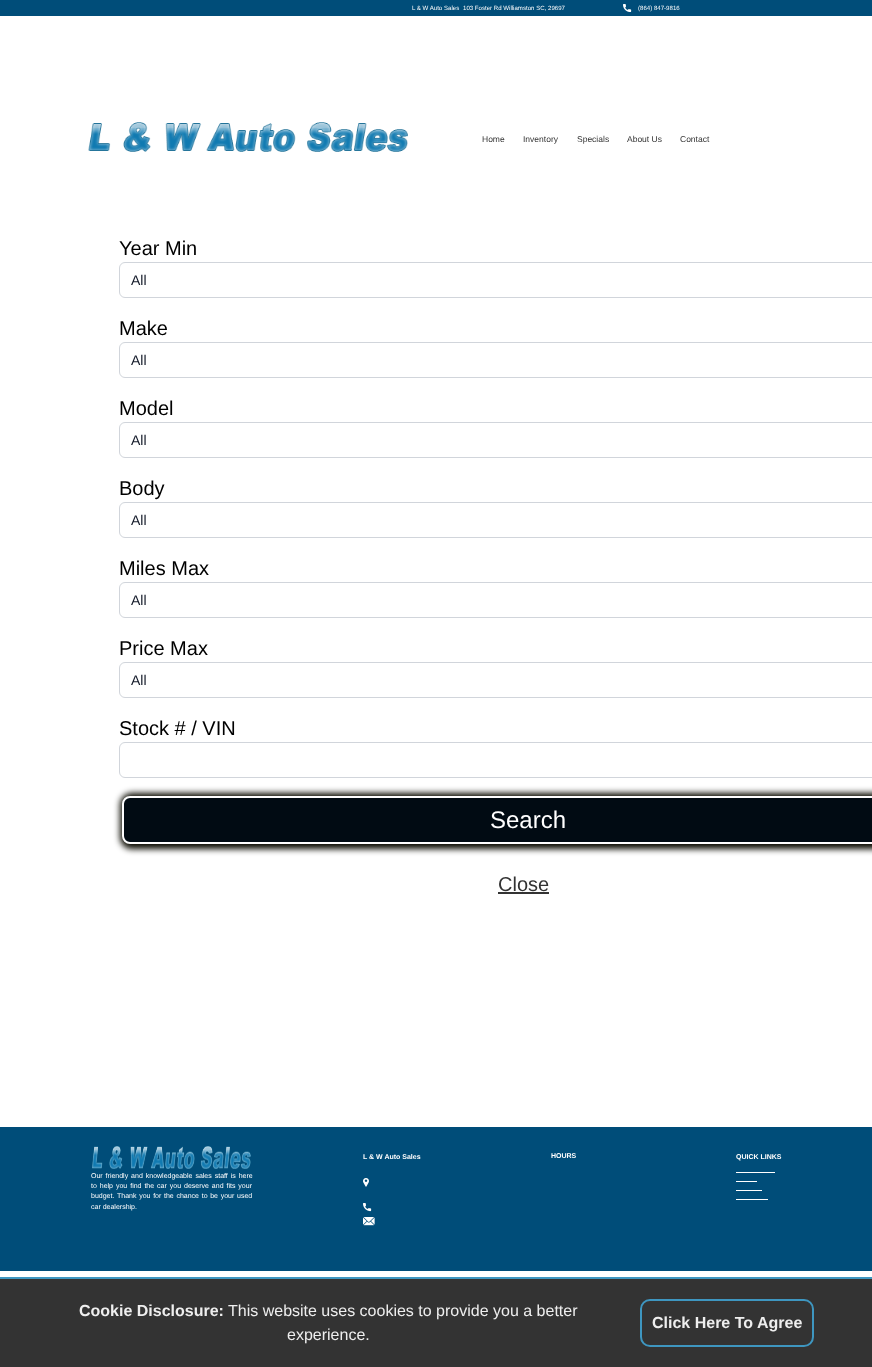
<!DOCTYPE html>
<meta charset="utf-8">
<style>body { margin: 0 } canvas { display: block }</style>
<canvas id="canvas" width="872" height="1367"></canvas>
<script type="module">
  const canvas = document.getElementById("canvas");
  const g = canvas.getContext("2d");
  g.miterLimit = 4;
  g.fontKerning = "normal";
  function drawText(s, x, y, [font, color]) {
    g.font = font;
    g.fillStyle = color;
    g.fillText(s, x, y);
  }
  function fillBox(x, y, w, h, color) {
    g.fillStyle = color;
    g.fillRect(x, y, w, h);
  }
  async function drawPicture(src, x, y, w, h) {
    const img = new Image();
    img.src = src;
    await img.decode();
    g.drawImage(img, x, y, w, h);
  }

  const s1 = ["6.1px Liberation Sans", "#FFFFFF"];
  const s2 = ["8.5px Liberation Sans", "#333333"];
  const s3 = ["20px Liberation Sans", "#000000"];
  const s4 = ["14px Liberation Sans", "#111827"];
  const s5 = ["24px Liberation Sans", "#FFFFFF"];
  const s6 = ["20px Liberation Sans", "#333333"];
  const s7 = ["bold 7px Liberation Sans", "#FFFFFF"];
  const s8 = ["7px Liberation Sans", "#FFFFFF"];
  const s9 = ["bold 16px Liberation Sans", "#EEEEEE"];
  const s10 = ["16px Liberation Sans", "#EEEEEE"];

  fillBox(0, 0, 872, 1367, "#FFFFFF");
  fillBox(0, 0, 872, 16, "#004D79");
  drawText("L & W Auto Sales", 412, 10, s1);
  drawText("103 Foster Rd Williamston SC, 29697", 463, 10, s1);
  await drawPicture("pic1.png", 623, 4, 9, 8);
  drawText("(864) 847-9816", 638, 10, s1);
  await drawPicture("pic2.png", 88, 122, 320, 30);
  drawText("Home", 482, 142, s2);
  drawText("Inventory", 523, 142, s2);
  drawText("Specials", 577, 142, s2);
  drawText("About Us", 627, 142, s2);
  drawText("Contact", 680, 142, s2);
  drawText("Year Min", 119, 255, s3);
  g.beginPath();
  g.roundRect(119.5, 262.5, 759, 35, 5.5);
  g.strokeStyle = "#D1D5DB";
  g.stroke();
  drawText("All", 131, 285, s4);
  drawText("Make", 119, 335, s3);
  g.beginPath();
  g.roundRect(119.5, 342.5, 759, 35, 5.5);
  g.stroke();
  drawText("All", 131, 365, s4);
  drawText("Model", 119, 415, s3);
  g.beginPath();
  g.roundRect(119.5, 422.5, 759, 35, 5.5);
  g.stroke();
  drawText("All", 131, 445, s4);
  drawText("Body", 119, 495, s3);
  g.beginPath();
  g.roundRect(119.5, 502.5, 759, 35, 5.5);
  g.stroke();
  drawText("All", 131, 525, s4);
  drawText("Miles Max", 119, 575, s3);
  g.beginPath();
  g.roundRect(119.5, 582.5, 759, 35, 5.5);
  g.stroke();
  drawText("All", 131, 605, s4);
  drawText("Price Max", 119, 655, s3);
  g.beginPath();
  g.roundRect(119.5, 662.5, 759, 35, 5.5);
  g.stroke();
  drawText("All", 131, 685, s4);
  drawText("Stock # / VIN", 119, 735, s3);
  g.beginPath();
  g.roundRect(119.5, 742.5, 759, 35, 5.5);
  g.stroke();
  g.fillStyle = "#0A0A00";
  g.filter = "blur(3px)";
  g.beginPath();
  g.roundRect(120, 793, 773, 56, 12);
  g.fill();
  g.filter = "none";
  g.fillStyle = "#010B13";
  g.beginPath();
  g.roundRect(123, 797, 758, 46, 7);
  g.fill();
  g.strokeStyle = "#FFFFFF";
  g.lineWidth = 2;
  g.stroke();
  drawText("Search", 490, 828, s5);
  drawText("Close", 498, 891, s6);
  fillBox(498, 892, 51, 2, "#333333");
  fillBox(0, 1127, 872, 144, "#004D79");
  drawText("L & W Auto Sales", 363, 1159, s7);
  await drawPicture("pic3.png", 363, 1178, 6, 9);
  await drawPicture("pic4.png", 363, 1203, 9, 9);
  await drawPicture("pic5.png", 363, 1217, 12, 9);
  drawText("HOURS", 551, 1158, s7);
  drawText("QUICK LINKS", 736, 1159, s7);
  fillBox(736, 1172, 39, 1, "#FFFFFF");
  fillBox(736, 1181, 21, 1, "#FFFFFF");
  fillBox(736, 1190, 26, 1, "#FFFFFF");
  fillBox(736, 1199, 32, 1, "#FFFFFF");
  await drawPicture("pic6.png", 92, 1146, 159, 23);
  g.wordSpacing = "1px";
  drawText("Our friendly and knowledgeable sales staff is here", 91, 1178, s8);
  drawText("to help you find the car you deserve and fits your", 91, 1188, s8);
  g.wordSpacing = "0px";
  drawText("budget.", 91, 1198, s8);
  g.wordSpacing = "0.75px";
  drawText("Thank you for the chance to be your used", 117, 1198, s8);
  g.wordSpacing = "0px";
  drawText("car dealership.", 91, 1209, s8);
  fillBox(0, 1277, 872, 2, "#3E96C0");
  fillBox(0, 1279, 872, 88, "#333333");
  drawText("Cookie Disclosure:", 79, 1316, s9);
  drawText("This website uses cookies to provide you a better", 228, 1316, s10);
  drawText("experience.", 287, 1340, s10);
  g.beginPath();
  g.roundRect(641, 1300, 172, 46, 9);
  g.strokeStyle = "#3E96C0";
  g.stroke();
  drawText("Click Here To Agree", 652, 1328, s9);
</script>
